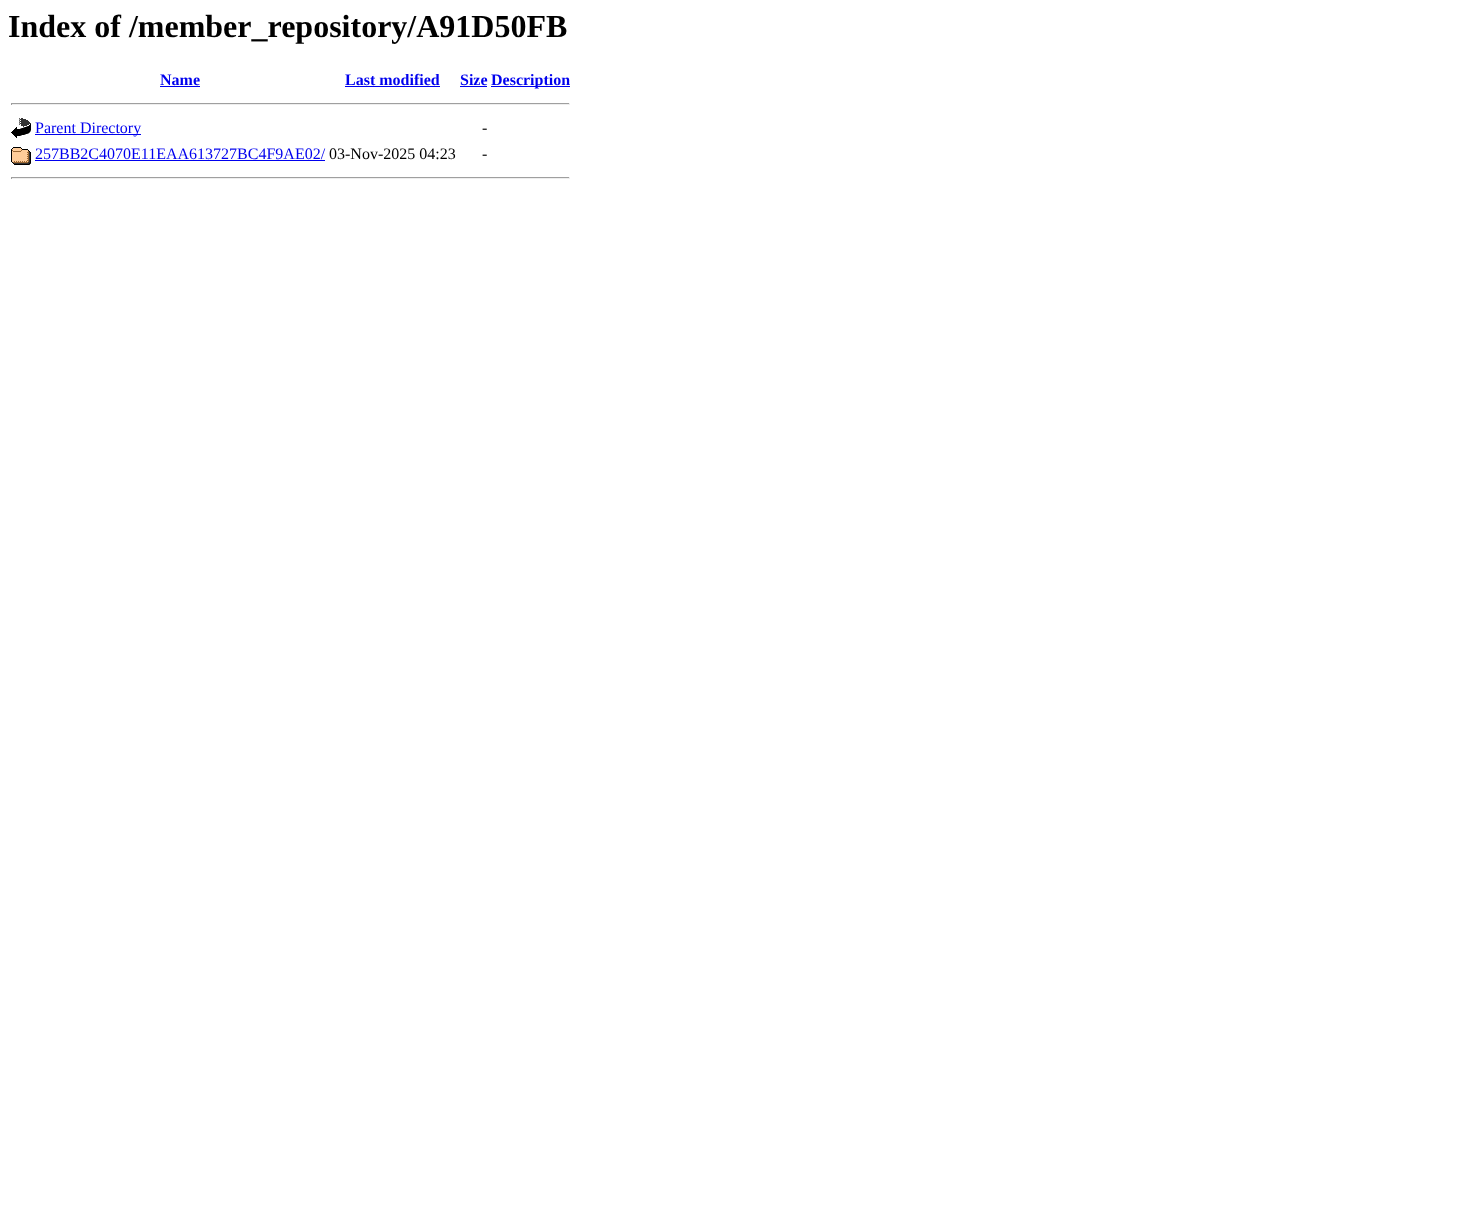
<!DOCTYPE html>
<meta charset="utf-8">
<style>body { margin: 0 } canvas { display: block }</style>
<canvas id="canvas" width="1480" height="1209"></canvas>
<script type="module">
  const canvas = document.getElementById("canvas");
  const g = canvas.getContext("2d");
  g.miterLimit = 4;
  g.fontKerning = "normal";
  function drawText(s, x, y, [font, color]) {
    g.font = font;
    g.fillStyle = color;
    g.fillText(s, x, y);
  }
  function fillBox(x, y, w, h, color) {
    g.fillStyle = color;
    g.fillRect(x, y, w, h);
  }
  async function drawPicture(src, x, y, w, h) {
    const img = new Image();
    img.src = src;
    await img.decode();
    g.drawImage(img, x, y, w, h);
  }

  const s1 = ["bold 32px Liberation Serif", "#000000"];
  const s2 = ["bold 16px Liberation Serif", "#0000EE"];
  const s3 = ["16px Liberation Serif", "#0000EE"];
  const s4 = ["16px Liberation Serif", "#000000"];

  fillBox(0, 0, 1480, 1209, "#FFFFFF");
  drawText("Index of /member_repository/A91D50FB", 8, 37, s1);
  drawText("Name", 160, 85, s2);
  fillBox(160, 86, 40, 1, "#0000EE");
  drawText("Last modified", 345, 85, s2);
  fillBox(345, 86, 95, 1, "#0000EE");
  drawText("Size", 460, 85, s2);
  fillBox(460, 86, 27, 1, "#0000EE");
  fillBox(491, 86, 79, 1, "#0000EE");
  drawText("Description", 491, 85, s2);
  fillBox(11, 103, 559, 1, "#9F9F9F");
  fillBox(569, 103, 1, 2, "#EEEEEE");
  fillBox(11, 104, 559, 1, "#EEEEEE");
  fillBox(11, 103, 1, 2, "#9F9F9F");
  await drawPicture("pic1.png", 11, 118, 20, 20);
  fillBox(35, 134, 106, 1, "#0000EE");
  drawText("Parent Directory", 35, 133, s3);
  drawText("-", 482, 133, s4);
  await drawPicture("pic2.png", 11, 147, 20, 18);
  drawText("257BB2C4070E11EAA613727BC4F9AE02/", 35, 159, s3);
  fillBox(35, 160, 290, 1, "#0000EE");
  drawText("03-Nov-2025 04:23", 329, 159, s4);
  drawText("-", 482, 159, s4);
  fillBox(11, 177, 559, 1, "#9F9F9F");
  fillBox(569, 177, 1, 2, "#EEEEEE");
  fillBox(11, 178, 559, 1, "#EEEEEE");
  fillBox(11, 177, 1, 2, "#9F9F9F");
</script>
